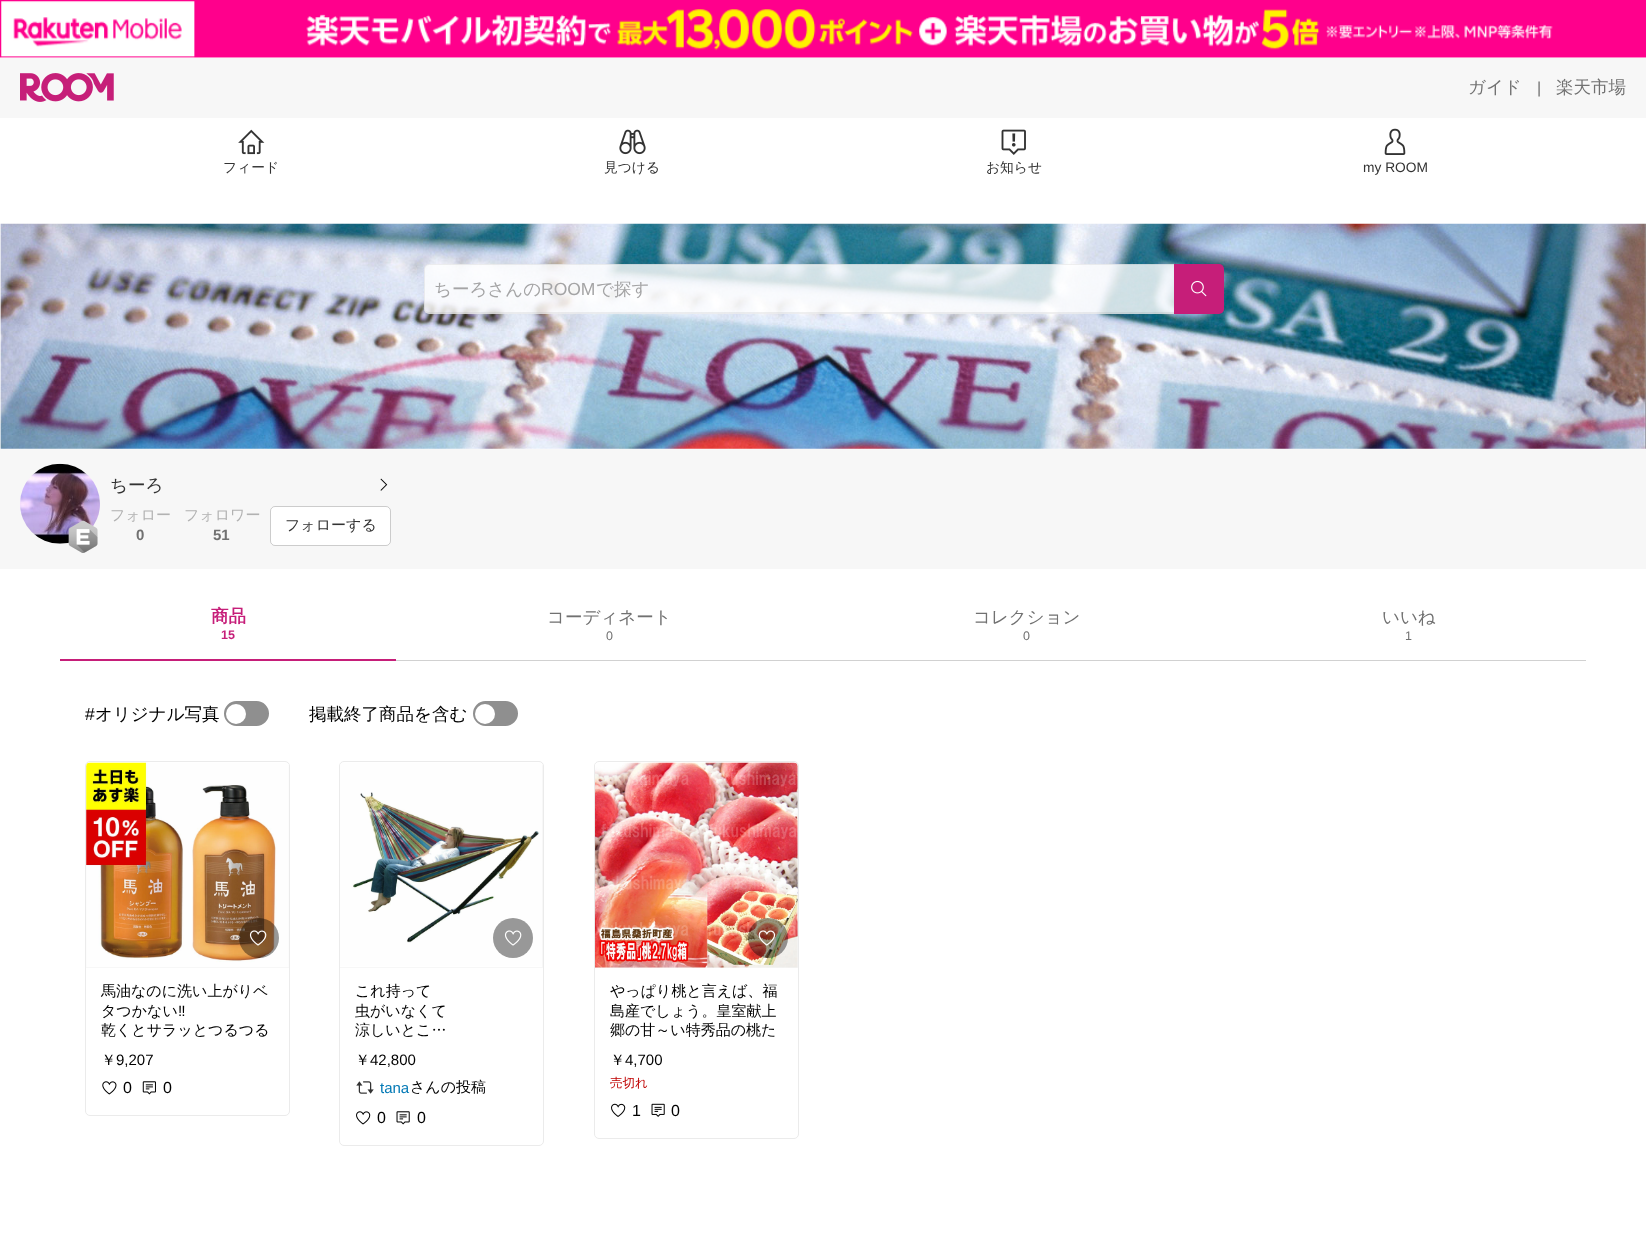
<!DOCTYPE html>
<meta charset="utf-8">
<style>body { margin: 0 } canvas { display: block }</style>
<canvas id="canvas" width="1646" height="1239"></canvas>
<script type="module">
  const canvas = document.getElementById("canvas");
  const g = canvas.getContext("2d");
  g.miterLimit = 4;
  g.fontKerning = "normal";
  function drawText(s, x, y, [font, color]) {
    g.font = font;
    g.fillStyle = color;
    g.fillText(s, x, y);
  }
  function fillBox(x, y, w, h, color) {
    g.fillStyle = color;
    g.fillRect(x, y, w, h);
  }
  function fillRounded(x, y, w, h, r, color) {
    g.fillStyle = color;
    g.beginPath();
    g.roundRect(x, y, w, h, r);
    g.fill();
  }
  async function drawPicture(src, x, y, w, h) {
    const img = new Image();
    img.src = src;
    await img.decode();
    g.drawImage(img, x, y, w, h);
  }

  const s1 = ["500 17.5px WenQuanYi Zen Hei", "#717171"];
  const s2 = ["16px Liberation Sans", "#717171"];
  const s3 = ["500 13.75px WenQuanYi Zen Hei", "#333333"];
  const s4 = ["13.75px Liberation Sans", "#333333"];
  const s5 = ["500 17.5px WenQuanYi Zen Hei", "#A4A4A5"];
  const s6 = ["17.5px Liberation Sans", "#A4A4A5"];
  const s7 = ["500 17.5px WenQuanYi Zen Hei", "#333333"];
  const s8 = ["500 15px WenQuanYi Zen Hei", "#B2B2B2"];
  const s9 = ["bold 15px Liberation Sans", "#717171"];
  const s10 = ["500 15px WenQuanYi Zen Hei", "#333333"];
  const s11 = ["bold 17.5px WenQuanYi Zen Hei", "#C61E79"];
  const s12 = ["bold 12.5px Liberation Sans", "#C61E79"];
  const s13 = ["12.5px Liberation Sans", "#717171"];
  const s14 = ["17.5px Liberation Sans", "#000000"];
  const s15 = ["500 17.5px WenQuanYi Zen Hei", "#000000"];
  const s16 = ["500 15px WenQuanYi Zen Hei", "#000000"];
  const s17 = ["15px Liberation Sans", "#000000"];
  const s18 = ["16px Liberation Sans", "#000000"];
  const s19 = ["15px Liberation Sans", "#0078B5"];
  const s20 = ["500 12.5px WenQuanYi Zen Hei", "#BF0000"];

  fillBox(0, 0, 1646, 1239, "#FFFFFF");
  await drawPicture("pic1.png", 0, 0, 1646, 58);
  fillBox(0, 58, 1646, 60, "#F7F7F7");
  await drawPicture("pic2.png", 20, 73, 94, 29);
  drawText("ガイド", 1468, 93, s1);
  drawText("|", 1537, 93, s2);
  drawText("楽天市場", 1556, 93, s1);
  await drawPicture("pic3.png", 238, 129, 27, 26);
  drawText("フィード", 223, 172, s3);
  await drawPicture("pic4.png", 619, 129, 27, 26);
  drawText("見つける", 604, 172, s3);
  await drawPicture("pic5.png", 1001, 129, 25, 26);
  drawText("お知らせ", 986, 172, s3);
  await drawPicture("pic6.png", 1384, 128, 22, 27);
  drawText("my ROOM", 1363, 172, s4);
  await drawPicture("pic7.png", 0, 223, 1646, 226);
  g.fillStyle = "rgba(255, 255, 255, 0.8)";
  g.beginPath();
  g.roundRect(424, 264, 750, 50, [5, 0, 0, 5]);
  g.fill();
  g.fillStyle = "rgba(0, 0, 0, 0.06)";
  g.beginPath();
  g.moveTo(429, 264);
  g.lineTo(1174, 264);
  g.lineTo(1174, 314);
  g.lineTo(429, 314);
  g.bezierCurveTo(426, 314, 424, 312, 424, 309);
  g.lineTo(424, 269);
  g.bezierCurveTo(424, 266, 426, 264, 429, 264);
  g.closePath();
  g.moveTo(429, 265);
  g.lineTo(1174, 265);
  g.lineTo(1174, 312);
  g.lineTo(429, 312);
  g.bezierCurveTo(427, 312, 425, 311, 425, 309);
  g.lineTo(425, 269);
  g.bezierCurveTo(425, 267, 427, 265, 429, 265);
  g.closePath();
  g.fill("evenodd");
  drawText("ちーろさんの", 434, 295, s5);
  drawText("ROOM", 541, 295, s6);
  drawText("で探す", 596, 295, s5);
  g.fillStyle = "#C61E79";
  g.beginPath();
  g.roundRect(1174, 264, 50, 50, [0, 5, 5, 0]);
  g.fill();
  await drawPicture("pic8.png", 1191, 280, 16, 17);
  fillBox(0, 449, 1646, 120, "#F7F7F7");
  await drawPicture("pic9.png", 20, 463, 80, 81);
  await drawPicture("pic10.png", 68, 520, 30, 33);
  drawText("ちーろ", 110, 491, s7);
  await drawPicture("pic11.png", 380, 478, 8, 13);
  drawText("フォロー", 110, 520, s8);
  drawText("0", 136, 540, s9);
  drawText("フォロワー", 184, 520, s8);
  drawText("51", 213, 540, s9);
  fillRounded(270, 506, 121, 40, 5, "#FFFFFF");
  g.beginPath();
  g.roundRect(270.5, 506.5, 120, 39, 4.5);
  g.strokeStyle = "rgba(0, 0, 0, 0.2)";
  g.stroke();
  drawText("フォローする", 285, 530, s10);
  fillBox(60, 659, 336, 2, "#C61E79");
  drawText("商品", 211, 622, s11);
  drawText("15", 221, 639, s12);
  fillBox(396, 660, 1190, 1, "#D1D1D1");
  drawText("コーディネート", 547, 623, s1);
  drawText("0", 606, 640, s13);
  drawText("コレクション", 973, 623, s1);
  drawText("0", 1023, 640, s13);
  drawText("いいね", 1382, 623, s1);
  drawText("1", 1405, 640, s13);
  drawText("#", 85, 720, s14);
  drawText("オリジナル写真", 95, 720, s15);
  g.fillStyle = "#8F8F8F";
  g.beginPath();
  g.roundRect(225.5, 702.5, 42, 22, 11);
  g.fill();
  g.strokeStyle = "#8F8F8F";
  g.lineWidth = 3;
  g.stroke();
  g.fillStyle = "#FFFFFF";
  g.beginPath();
  g.arc(236, 714, 10, 0, Math.PI * 2);
  g.fill();
  drawText("掲載終了商品を含む", 309, 720, s15);
  g.fillStyle = "#8F8F8F";
  g.beginPath();
  g.roundRect(474.5, 702.5, 42, 22, 11);
  g.fill();
  g.stroke();
  g.fillStyle = "#FFFFFF";
  g.beginPath();
  g.arc(485, 714, 10, 0, Math.PI * 2);
  g.fill();
  g.beginPath();
  g.roundRect(85.5, 761.5, 204, 354, 4.5);
  g.strokeStyle = "#EBEBEB";
  g.lineWidth = 1;
  g.stroke();
  g.fillStyle = "#F7F7F7";
  g.beginPath();
  g.roundRect(86, 763, 203, 205, [4, 4, 0, 0]);
  g.fill();
  await drawPicture("pic12.png", 86, 762, 203, 205);
  g.fillStyle = "rgba(0, 0, 0, 0.4)";
  g.beginPath();
  g.arc(259, 938, 20, 0, Math.PI * 2);
  g.fill();
  await drawPicture("pic13.png", 249, 930, 18, 16);
  drawText("馬油なのに洗い上がりベ", 101, 996, s16);
  drawText("タつかない", 101, 1016, s16);
  drawText("‼︎", 178, 1016, s17);
  drawText("乾くとサラッとつるつる", 101, 1035, s16);
  drawText("￥", 101, 1065, s16);
  drawText("9,207", 116, 1065, s17);
  await drawPicture("pic14.png", 102, 1081, 15, 14);
  drawText("0", 123, 1093, s18);
  await drawPicture("pic15.png", 142, 1081, 14, 14);
  drawText("0", 163, 1093, s18);
  g.beginPath();
  g.roundRect(339.5, 761.5, 204, 384, 4.5);
  g.stroke();
  g.fillStyle = "#F7F7F7";
  g.beginPath();
  g.roundRect(340, 763, 203, 205, [4, 4, 0, 0]);
  g.fill();
  await drawPicture("pic16.png", 340, 763, 202, 204);
  g.fillStyle = "#989898";
  g.beginPath();
  g.arc(513, 938, 20, 0, Math.PI * 2);
  g.fill();
  await drawPicture("pic17.png", 504, 930, 18, 16);
  drawText("これ持って", 355, 996, s16);
  drawText("虫がいなくて", 355, 1016, s16);
  drawText("涼しいとこ…", 355, 1035, s16);
  drawText("￥", 355, 1065, s16);
  drawText("42,800", 370, 1065, s17);
  await drawPicture("pic18.png", 356, 1081, 18, 13);
  drawText("tana", 380, 1093, s19);
  drawText("さんの投稿", 410, 1092, s16);
  await drawPicture("pic19.png", 356, 1111, 15, 14);
  drawText("0", 377, 1123, s18);
  await drawPicture("pic20.png", 396, 1111, 14, 14);
  drawText("0", 417, 1123, s18);
  g.beginPath();
  g.roundRect(594.5, 761.5, 204, 377, 4.5);
  g.stroke();
  g.fillStyle = "#F7F7F7";
  g.beginPath();
  g.roundRect(595, 763, 203, 205, [4, 4, 0, 0]);
  g.fill();
  await drawPicture("pic21.png", 595, 762, 203, 206);
  g.fillStyle = "rgba(0, 0, 0, 0.4)";
  g.beginPath();
  g.arc(768, 938, 20, 0, Math.PI * 2);
  g.fill();
  await drawPicture("pic22.png", 758, 930, 18, 16);
  drawText("やっぱり桃と言えば、福", 610, 996, s16);
  drawText("島産でしょう。皇室献上", 610, 1016, s16);
  drawText("郷の甘～い特秀品の桃た", 610, 1035, s16);
  drawText("￥", 610, 1065, s16);
  drawText("4,700", 625, 1065, s17);
  drawText("売切れ", 610, 1087, s20);
  await drawPicture("pic23.png", 611, 1103, 15, 14);
  drawText("1", 632, 1116, s18);
  await drawPicture("pic24.png", 651, 1103, 14, 14);
  drawText("0", 671, 1116, s18);
</script>
